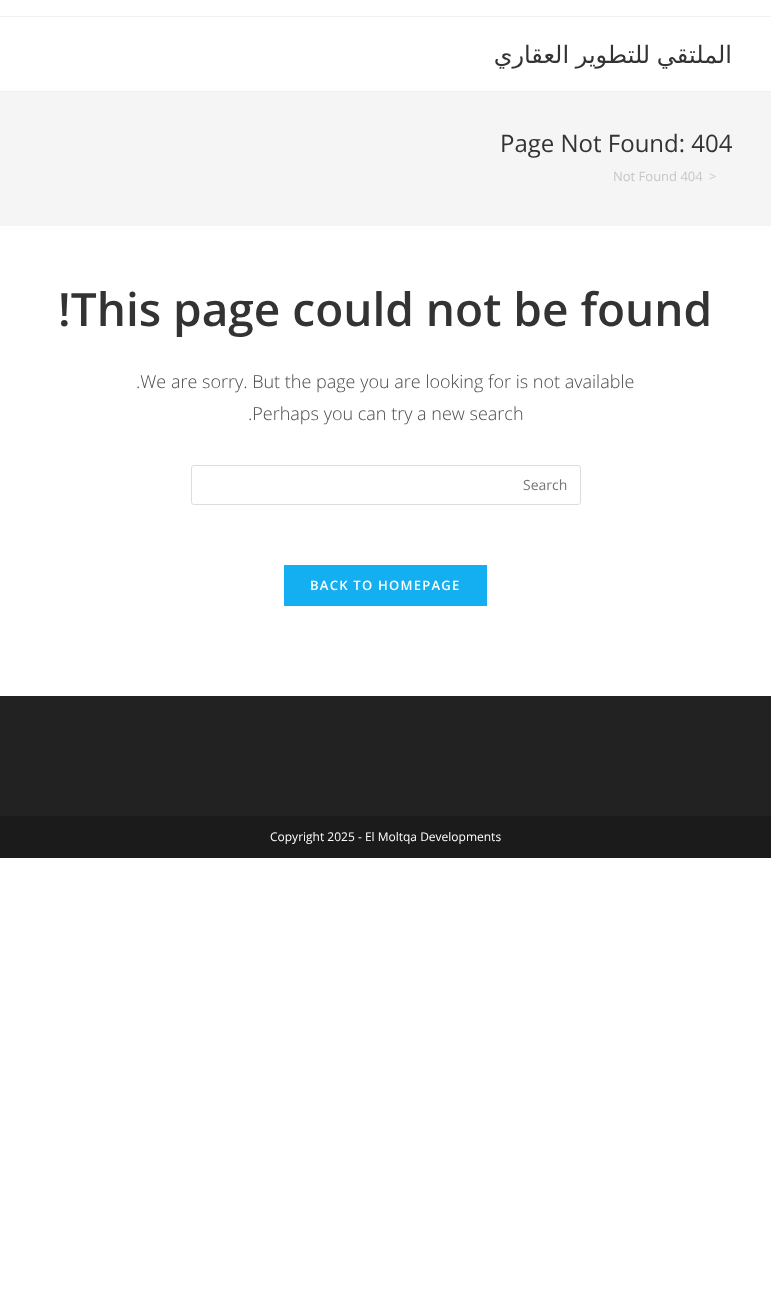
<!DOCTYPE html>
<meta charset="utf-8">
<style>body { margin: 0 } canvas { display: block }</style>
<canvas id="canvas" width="771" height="1297"></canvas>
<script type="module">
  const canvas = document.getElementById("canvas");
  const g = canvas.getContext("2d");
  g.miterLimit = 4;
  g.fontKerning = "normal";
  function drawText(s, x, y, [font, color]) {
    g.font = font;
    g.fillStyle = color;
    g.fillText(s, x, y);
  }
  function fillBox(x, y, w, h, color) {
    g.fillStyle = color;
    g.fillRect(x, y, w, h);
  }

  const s1 = ["24px DejaVu Sans", "#333333"];
  const s2 = ["24px Open Sans", "#333333"];
  const s3 = ["13px Open Sans", "#C6C6C6"];
  const s4 = ["600 46px Open Sans", "#333333"];
  const s5 = ["300 18px Open Sans", "#4A4A4A"];
  const s6 = ["14px Open Sans", "#757575"];
  const s7 = ["600 13px Open Sans", "#FFFFFF"];
  const s8 = ["12px Open Sans", "#FFFFFF"];

  fillBox(0, 0, 771, 1297, "#FFFFFF");
  fillBox(0, 16, 771, 1, "#F1F1F1");
  fillBox(0, 91, 771, 1, "#F1F1F1");
  g.wordSpacing = "-1px";
  g.direction = "rtl";
  drawText("الملتقي للتطوير العقاري", 732, 63, s1);
  fillBox(0, 92, 771, 134, "#F5F5F5");
  g.wordSpacing = "0px";
  g.direction = "ltr";
  drawText("Page Not Found: 404", 500, 152, s2);
  drawText("Not Found 404", 613, 181, s3);
  drawText(">", 709, 181, s3);
  drawText("!This page could not be found", 58, 326, s4);
  drawText(".We are sorry. But the page you are looking for is not available", 136, 388, s5);
  drawText(".Perhaps you can try a new search", 248, 420, s5);
  g.beginPath();
  g.roundRect(191.5, 465.5, 389, 39, 2.5);
  g.strokeStyle = "#DDDDDD";
  g.stroke();
  drawText("Search", 523, 490, s6);
  fillBox(284, 565, 203, 41, "#13AFF0");
  g.letterSpacing = "1.25px";
  drawText("BACK TO HOMEPAGE", 310, 590, s7);
  fillBox(0, 696, 771, 120, "#222222");
  fillBox(0, 816, 771, 42, "#1B1B1B");
  g.letterSpacing = "0px";
  drawText("Copyright 2025 - El Moltqa Developments", 270, 841, s8);
</script>
